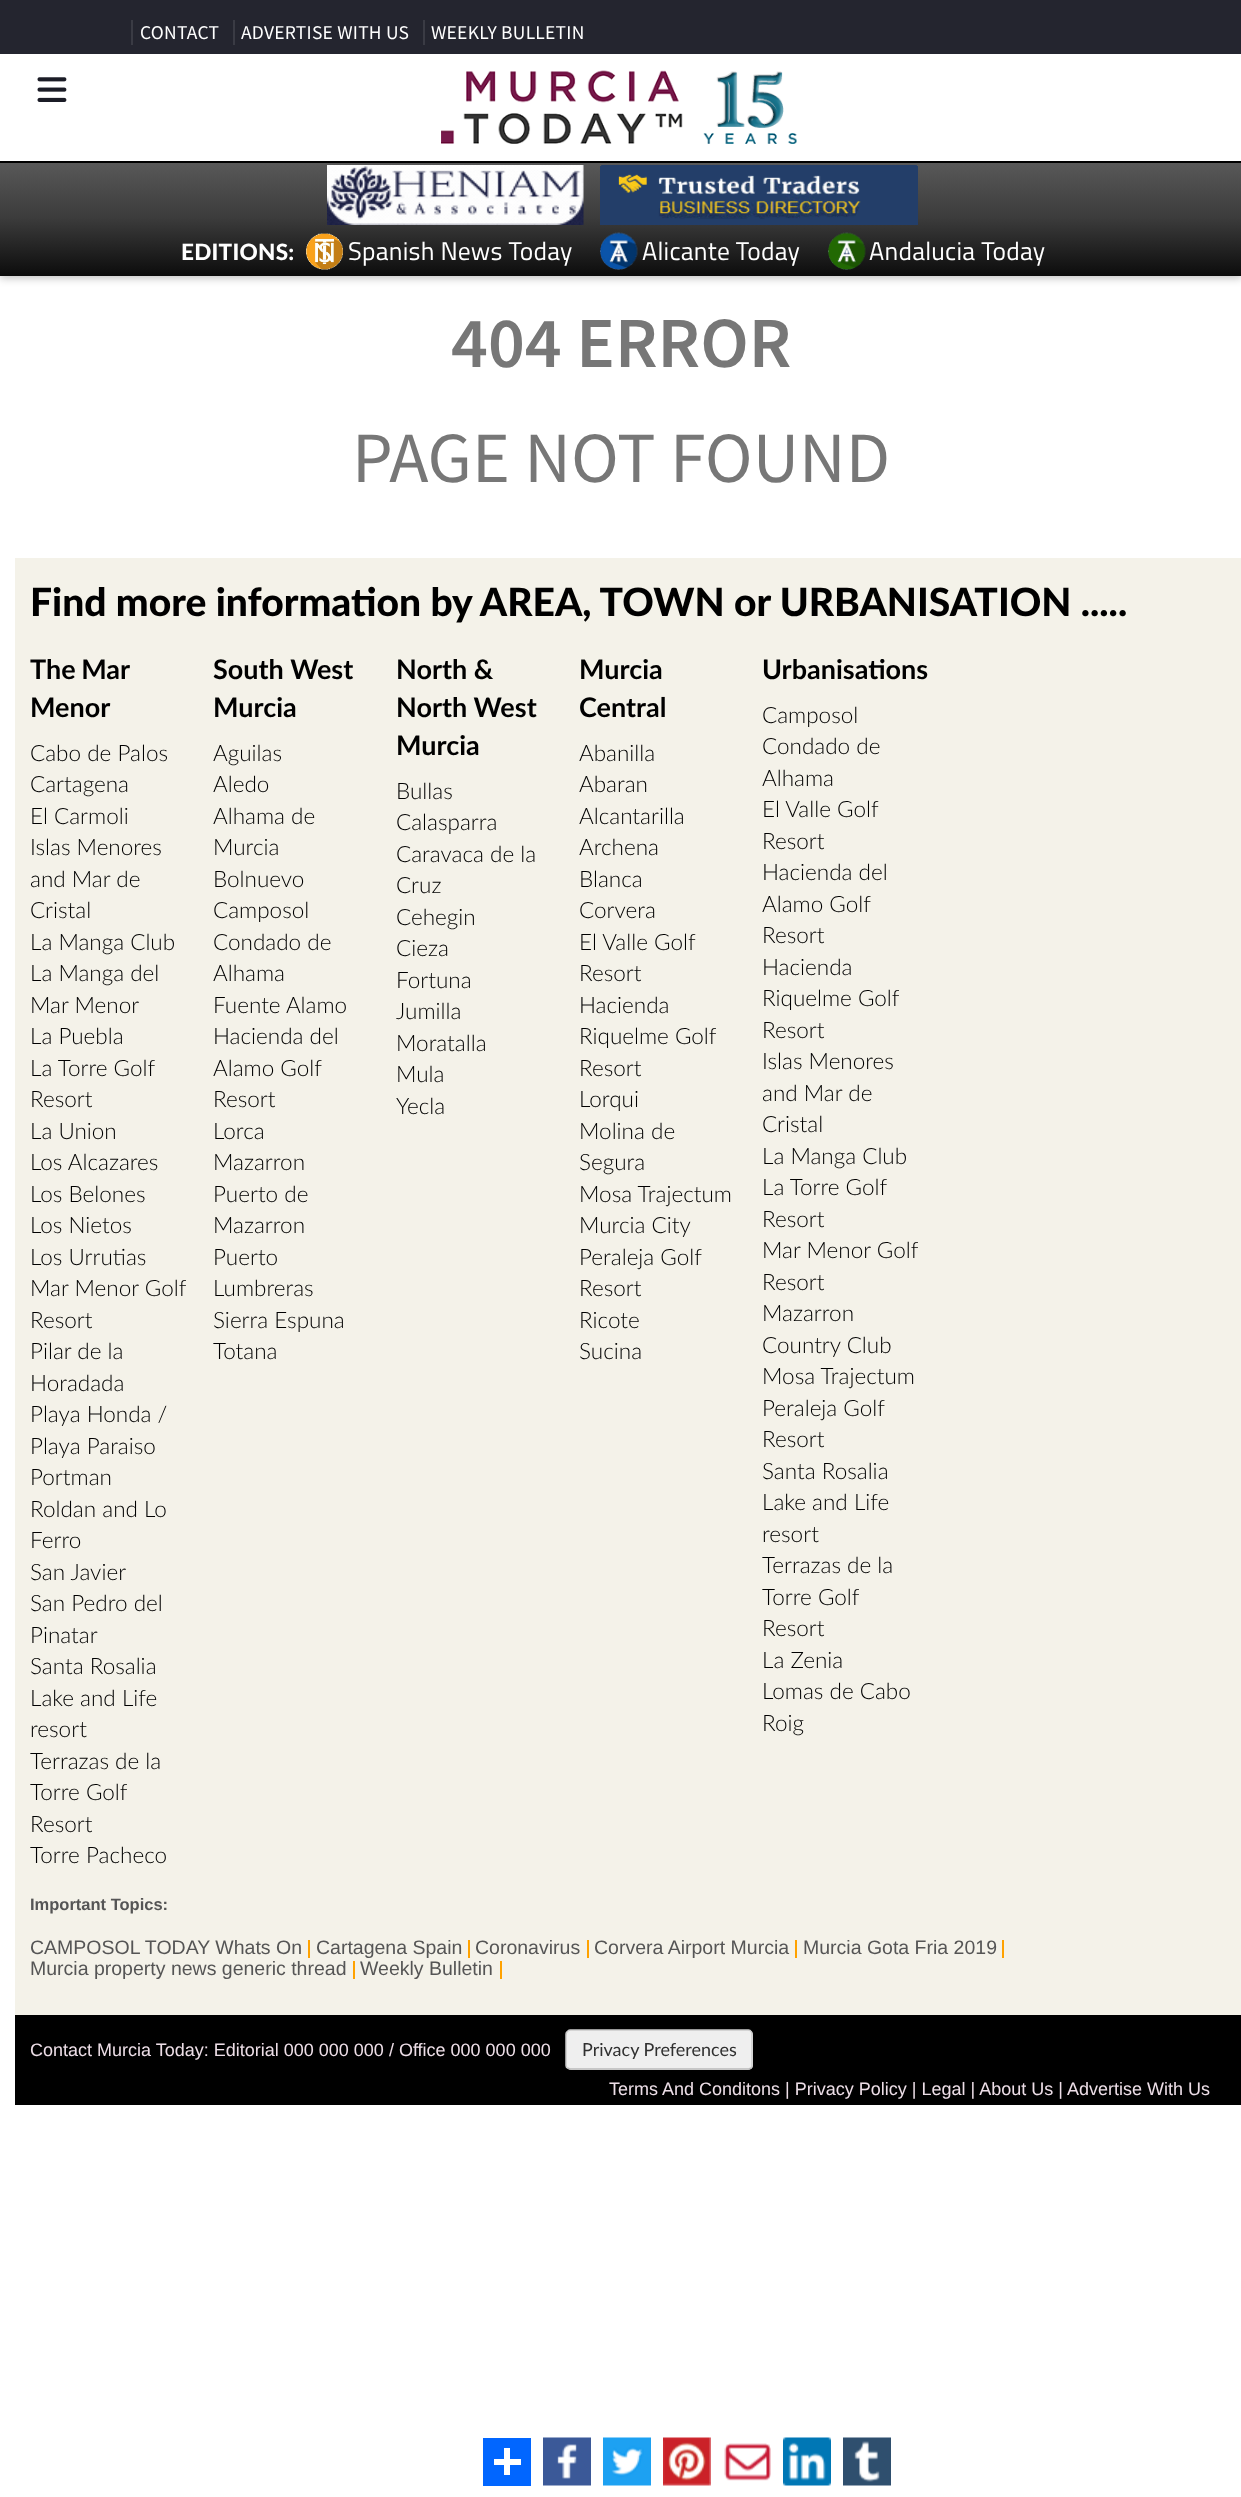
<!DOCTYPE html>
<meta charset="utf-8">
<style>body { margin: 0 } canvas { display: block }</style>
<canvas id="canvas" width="1241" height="2497"></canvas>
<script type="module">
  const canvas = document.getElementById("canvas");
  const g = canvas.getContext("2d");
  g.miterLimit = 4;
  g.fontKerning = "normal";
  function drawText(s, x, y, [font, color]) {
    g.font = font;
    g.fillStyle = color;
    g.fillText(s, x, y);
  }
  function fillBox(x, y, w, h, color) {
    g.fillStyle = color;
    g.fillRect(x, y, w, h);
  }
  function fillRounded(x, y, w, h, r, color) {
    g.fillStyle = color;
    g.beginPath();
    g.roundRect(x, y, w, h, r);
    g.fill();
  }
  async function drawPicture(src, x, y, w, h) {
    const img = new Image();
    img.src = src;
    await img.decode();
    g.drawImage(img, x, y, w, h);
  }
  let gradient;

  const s1 = ["19.5px Source Sans Pro", "#FFFFFF"];
  const s2 = ["900 22.5px Lato", "#FFFFFF"];
  const s3 = ["25.5px Titillium Web", "#FFFFFF"];
  const s4 = ["600 72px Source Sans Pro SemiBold", "#777777"];
  const s5 = ["72px Source Sans Pro", "#777777"];
  const s6 = ["900 39px Lato", "#000000"];
  const s7 = ["bold 27px Lato", "#000000"];
  const s8 = ["300 22.5px Lato", "#000000"];
  const s9 = ["bold 16.5px Liberation Sans", "#555555"];
  const s10 = ["19.5px Liberation Sans", "#555555"];
  const s11 = ["18px Liberation Sans", "#EDDEE7"];
  const s12 = ["18px Lato", "#303030"];

  fillBox(0, 0, 1241, 2497, "#FFFFFF");
  g.fillStyle = "rgba(0, 0, 0, 0.25)";
  g.filter = "blur(4px)";
  g.beginPath();
  g.rect(0, 2, 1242, 276);
  g.fill();
  g.filter = "none";
  fillBox(0, 0, 1241, 54, "#24252F");
  g.letterSpacing = "0.25px";
  drawText("CONTACT", 140, 39, s1);
  fillBox(131, 20, 2, 25, "#3A3B44");
  drawText("ADVERTISE WITH US", 241, 39, s1);
  fillBox(233, 20, 2, 25, "#3A3B44");
  drawText("WEEKLY BULLETIN", 431, 39, s1);
  fillBox(423, 20, 2, 25, "#3A3B44");
  fillBox(0, 54, 1241, 107, "#FFFFFF");
  fillBox(0, 161, 1241, 2, "#000000");
  await drawPicture("pic1.png", 37, 77, 30, 25);
  await drawPicture("pic2.png", 441, 70, 356, 74);
  gradient = g.createLinearGradient(621, 159, 621, 276);
  gradient.addColorStop(0, "#5A5A5A");
  gradient.addColorStop(0.5, "#3C3C3C");
  gradient.addColorStop(1, "#0C0C0C");
  g.fillStyle = gradient;
  g.fillRect(0, 163, 1241, 113);
  await drawPicture("pic3.png", 327, 165, 257, 60);
  await drawPicture("pic4.png", 600, 165, 318, 60);
  drawText("EDITIONS:", 181, 260, s2);
  await drawPicture("pic5.png", 306, 233, 37, 37);
  drawText("Spanish News Today", 348, 260, s3);
  await drawPicture("pic6.png", 600, 232, 38, 38);
  drawText("Alicante Today", 642, 260, s3);
  await drawPicture("pic7.png", 828, 232, 38, 38);
  drawText("Andalucia Today", 869, 260, s3);
  g.letterSpacing = "0px";
  drawText("404 ERROR", 451, 367, s4);
  drawText("PAGE NOT FOUND", 352, 482, s5);
  fillBox(15, 558, 1226, 1457, "#F4F2E9");
  drawText("Find more information by AREA, TOWN or URBANISATION .....", 30, 616, s6);
  g.wordSpacing = "-1px";
  drawText("The Mar", 30, 679, s7);
  g.wordSpacing = "0px";
  drawText("Menor", 30, 717, s7);
  drawText("Cabo de Palos", 30, 761, s8);
  drawText("Cartagena", 30, 792, s8);
  drawText("El Carmoli", 30, 824, s8);
  drawText("Islas Menores", 30, 855, s8);
  drawText("and Mar de", 30, 887, s8);
  drawText("Cristal", 30, 918, s8);
  drawText("La Manga Club", 30, 950, s8);
  drawText("La Manga del", 30, 981, s8);
  drawText("Mar Menor", 30, 1013, s8);
  drawText("La Puebla", 30, 1044, s8);
  drawText("La Torre Golf", 30, 1076, s8);
  drawText("Resort", 30, 1107, s8);
  drawText("La Union", 30, 1139, s8);
  drawText("Los Alcazares", 30, 1170, s8);
  drawText("Los Belones", 30, 1202, s8);
  drawText("Los Nietos", 30, 1233, s8);
  drawText("Los Urrutias", 30, 1265, s8);
  drawText("Mar Menor Golf", 30, 1296, s8);
  drawText("Resort", 30, 1328, s8);
  drawText("Pilar de la", 30, 1359, s8);
  drawText("Horadada", 30, 1391, s8);
  drawText("Playa Honda /", 30, 1422, s8);
  drawText("Playa Paraiso", 30, 1454, s8);
  drawText("Portman", 30, 1485, s8);
  drawText("Roldan and Lo", 30, 1517, s8);
  drawText("Ferro", 30, 1548, s8);
  drawText("San Javier", 30, 1580, s8);
  drawText("San Pedro del", 30, 1611, s8);
  drawText("Pinatar", 30, 1643, s8);
  drawText("Santa Rosalia", 30, 1674, s8);
  drawText("Lake and Life", 30, 1706, s8);
  drawText("resort", 30, 1737, s8);
  drawText("Terrazas de la", 30, 1769, s8);
  drawText("Torre Golf", 30, 1800, s8);
  drawText("Resort", 30, 1832, s8);
  drawText("Torre Pacheco", 30, 1863, s8);
  drawText("South West", 213, 679, s7);
  drawText("Murcia", 213, 717, s7);
  drawText("Aguilas", 213, 761, s8);
  drawText("Aledo", 213, 792, s8);
  drawText("Alhama de", 213, 824, s8);
  drawText("Murcia", 213, 855, s8);
  drawText("Bolnuevo", 213, 887, s8);
  drawText("Camposol", 213, 918, s8);
  drawText("Condado de", 213, 950, s8);
  drawText("Alhama", 213, 981, s8);
  drawText("Fuente Alamo", 213, 1013, s8);
  drawText("Hacienda del", 213, 1044, s8);
  drawText("Alamo Golf", 213, 1076, s8);
  drawText("Resort", 213, 1107, s8);
  drawText("Lorca", 213, 1139, s8);
  drawText("Mazarron", 213, 1170, s8);
  drawText("Puerto de", 213, 1202, s8);
  drawText("Mazarron", 213, 1233, s8);
  drawText("Puerto", 213, 1265, s8);
  drawText("Lumbreras", 213, 1296, s8);
  drawText("Sierra Espuna", 213, 1328, s8);
  drawText("Totana", 213, 1359, s8);
  drawText("North &", 396, 679, s7);
  drawText("North West", 396, 717, s7);
  drawText("Murcia", 396, 755, s7);
  drawText("Bullas", 396, 799, s8);
  drawText("Calasparra", 396, 830, s8);
  drawText("Caravaca de la", 396, 862, s8);
  drawText("Cruz", 396, 893, s8);
  drawText("Cehegin", 396, 925, s8);
  drawText("Cieza", 396, 956, s8);
  drawText("Fortuna", 396, 988, s8);
  drawText("Jumilla", 396, 1019, s8);
  drawText("Moratalla", 396, 1051, s8);
  drawText("Mula", 396, 1082, s8);
  drawText("Yecla", 396, 1114, s8);
  drawText("Murcia", 579, 679, s7);
  drawText("Central", 579, 717, s7);
  drawText("Abanilla", 579, 761, s8);
  drawText("Abaran", 579, 792, s8);
  drawText("Alcantarilla", 579, 824, s8);
  drawText("Archena", 579, 855, s8);
  drawText("Blanca", 579, 887, s8);
  drawText("Corvera", 579, 918, s8);
  drawText("El Valle Golf", 579, 950, s8);
  drawText("Resort", 579, 981, s8);
  drawText("Hacienda", 579, 1013, s8);
  drawText("Riquelme Golf", 579, 1044, s8);
  drawText("Resort", 579, 1076, s8);
  drawText("Lorqui", 579, 1107, s8);
  drawText("Molina de", 579, 1139, s8);
  drawText("Segura", 579, 1170, s8);
  drawText("Mosa Trajectum", 579, 1202, s8);
  drawText("Murcia City", 579, 1233, s8);
  drawText("Peraleja Golf", 579, 1265, s8);
  drawText("Resort", 579, 1296, s8);
  drawText("Ricote", 579, 1328, s8);
  drawText("Sucina", 579, 1359, s8);
  drawText("Urbanisations", 762, 679, s7);
  drawText("Camposol", 762, 723, s8);
  drawText("Condado de", 762, 754, s8);
  drawText("Alhama", 762, 786, s8);
  drawText("El Valle Golf", 762, 817, s8);
  drawText("Resort", 762, 849, s8);
  drawText("Hacienda del", 762, 880, s8);
  drawText("Alamo Golf", 762, 912, s8);
  drawText("Resort", 762, 943, s8);
  drawText("Hacienda", 762, 975, s8);
  drawText("Riquelme Golf", 762, 1006, s8);
  drawText("Resort", 762, 1038, s8);
  drawText("Islas Menores", 762, 1069, s8);
  drawText("and Mar de", 762, 1101, s8);
  drawText("Cristal", 762, 1132, s8);
  drawText("La Manga Club", 762, 1164, s8);
  drawText("La Torre Golf", 762, 1195, s8);
  drawText("Resort", 762, 1227, s8);
  drawText("Mar Menor Golf", 762, 1258, s8);
  drawText("Resort", 762, 1290, s8);
  drawText("Mazarron", 762, 1321, s8);
  drawText("Country Club", 762, 1353, s8);
  drawText("Mosa Trajectum", 762, 1384, s8);
  drawText("Peraleja Golf", 762, 1416, s8);
  drawText("Resort", 762, 1447, s8);
  drawText("Santa Rosalia", 762, 1479, s8);
  drawText("Lake and Life", 762, 1510, s8);
  drawText("resort", 762, 1542, s8);
  drawText("Terrazas de la", 762, 1573, s8);
  drawText("Torre Golf", 762, 1605, s8);
  drawText("Resort", 762, 1636, s8);
  drawText("La Zenia", 762, 1668, s8);
  drawText("Lomas de Cabo", 762, 1699, s8);
  drawText("Roig", 762, 1731, s8);
  drawText("Important Topics:", 30, 1910, s9);
  fillBox(308, 1940, 2, 18, "#FFA200");
  drawText("CAMPOSOL TODAY Whats On", 30, 1954, s10);
  fillBox(468, 1940, 2, 18, "#FFA200");
  drawText("Cartagena Spain", 316, 1954, s10);
  fillBox(587, 1940, 2, 18, "#FFA200");
  drawText("Coronavirus", 475, 1954, s10);
  fillBox(795, 1940, 2, 18, "#FFA200");
  drawText("Corvera Airport Murcia", 594, 1954, s10);
  fillBox(1002, 1940, 2, 18, "#FFA200");
  drawText("Murcia Gota Fria 2019", 803, 1954, s10);
  fillBox(353, 1961, 2, 18, "#FFA200");
  drawText("Murcia property news generic thread", 30, 1975, s10);
  fillBox(500, 1961, 2, 18, "#FFA200");
  drawText("Weekly Bulletin", 360, 1975, s10);
  fillBox(15, 2015, 1226, 90, "#000000");
  drawText("Contact Murcia Today: Editorial 000 000 000 / Office 000 000 000", 30, 2056, s11);
  fillRounded(566, 2030, 187, 40, 5, "#EFEFEF");
  g.beginPath();
  g.moveTo(751, 2068);
  g.lineTo(749, 2069);
  g.lineTo(600, 2069);
  g.lineTo(570, 2069);
  g.lineTo(567.5, 2068);
  g.strokeStyle = "#BBBBBB";
  g.lineWidth = 1.5;
  g.stroke();
  g.beginPath();
  g.moveTo(567.5, 2068);
  g.bezierCurveTo(566.5, 2067.5, 566, 2066.5, 566, 2065.5);
  g.lineTo(566, 2034);
  g.bezierCurveTo(566, 2033, 566.5, 2032, 567.5, 2031.5);
  g.bezierCurveTo(568, 2030.5, 569, 2030, 570, 2030);
  g.lineTo(748.5, 2030);
  g.bezierCurveTo(749.5, 2030, 750.5, 2030.5, 751, 2031.5);
  g.bezierCurveTo(752, 2032, 752, 2033, 752, 2034);
  g.lineTo(752, 2065.5);
  g.bezierCurveTo(752, 2066.5, 752, 2067.5, 751, 2068);
  g.strokeStyle = "#CCCCCC";
  g.stroke();
  drawText("Privacy Preferences", 582, 2056, s12);
  drawText("Terms And Conditons | Privacy Policy | Legal | About Us | Advertise With Us", 609, 2095, s11);
  fillBox(483, 2438, 48, 48, "#0166FF");
  fillBox(504, 2448, 6, 27, "#FFFFFF");
  fillBox(494, 2459, 27, 6, "#FFFFFF");
  await drawPicture("pic8.png", 543, 2437, 48, 49);
  await drawPicture("pic9.png", 603, 2437, 48, 49);
  await drawPicture("pic10.png", 663, 2437, 48, 49);
  await drawPicture("pic11.png", 724, 2443, 47, 38);
  await drawPicture("pic12.png", 783, 2437, 48, 49);
  await drawPicture("pic13.png", 843, 2437, 48, 49);
</script>
